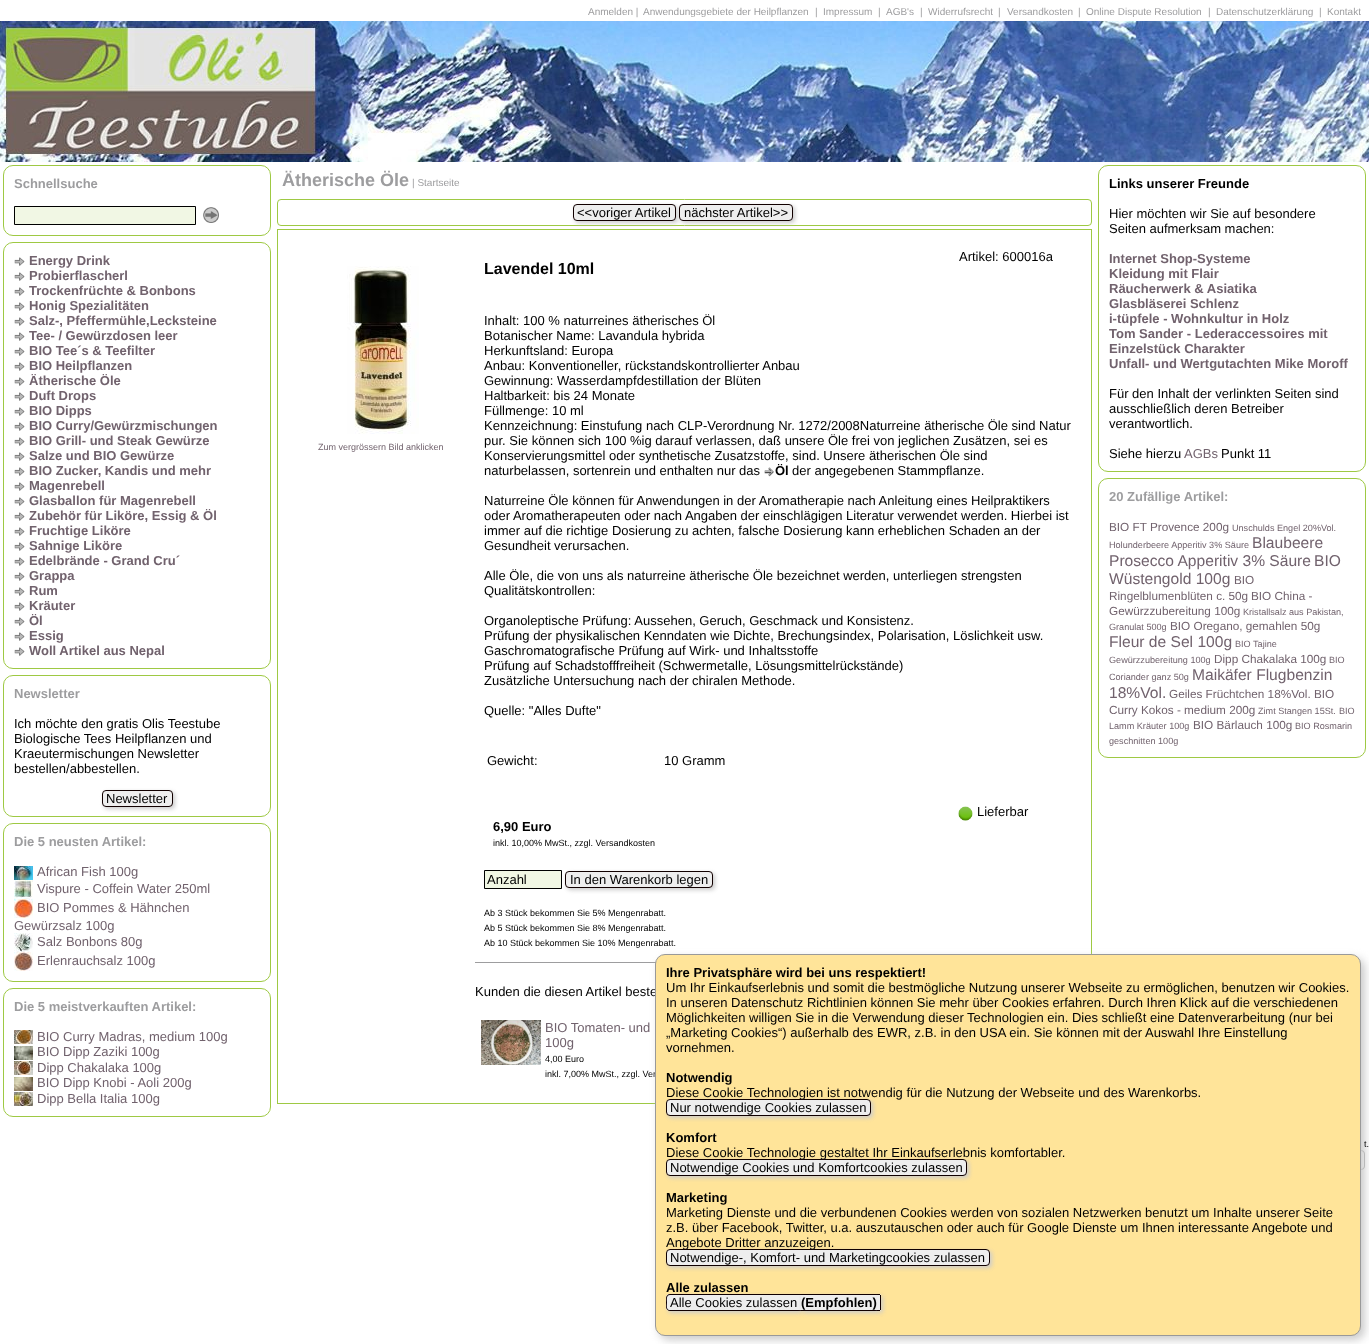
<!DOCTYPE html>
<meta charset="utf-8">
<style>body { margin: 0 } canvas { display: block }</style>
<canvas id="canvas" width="1369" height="1344"></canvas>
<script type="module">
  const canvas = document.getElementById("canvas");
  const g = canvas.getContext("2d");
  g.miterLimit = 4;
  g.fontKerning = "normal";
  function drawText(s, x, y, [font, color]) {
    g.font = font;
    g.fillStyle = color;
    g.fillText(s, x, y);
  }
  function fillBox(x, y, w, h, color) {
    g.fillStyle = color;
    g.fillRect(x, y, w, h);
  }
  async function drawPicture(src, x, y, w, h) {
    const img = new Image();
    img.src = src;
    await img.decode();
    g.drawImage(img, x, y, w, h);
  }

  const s1 = ["10px Liberation Sans", "#9D9D9F"];
  const s2 = ["bold 13px Liberation Sans", "#9D9D9F"];
  const s3 = ["bold 13px Liberation Sans", "#71626D"];
  const s4 = ["13px Liberation Sans", "#000000"];
  const s5 = ["13px Liberation Sans", "#71626D"];
  const s6 = ["bold 18px Liberation Sans", "#9D9D9F"];
  const s7 = ["9px Liberation Sans", "#71626D"];
  const s8 = ["bold 16px Liberation Sans", "#000000"];
  const s9 = ["bold 13px Liberation Sans", "#000000"];
  const s10 = ["9px Liberation Sans", "#000000"];
  const s11 = ["11.75px Liberation Sans", "#71626D"];
  const s12 = ["9.1px Liberation Sans", "#71626D"];
  const s13 = ["15.6px Liberation Sans", "#71626D"];

  fillBox(0, 0, 1369, 1344, "#FFFFFF");
  drawText("Anmelden |", 588, 15, s1);
  drawText("Anwendungsgebiete der Heilpflanzen", 643, 15, s1);
  drawText("|", 815, 15, s1);
  drawText("Impressum", 823, 15, s1);
  drawText("|", 878, 15, s1);
  drawText("AGB's", 886, 15, s1);
  drawText("|", 920, 15, s1);
  drawText("Widerrufsrecht", 928, 15, s1);
  drawText("|", 998, 15, s1);
  drawText("Versandkosten", 1007, 15, s1);
  drawText("|", 1078, 15, s1);
  drawText("Online Dispute Resolution", 1086, 15, s1);
  drawText("|", 1208, 15, s1);
  drawText("Datenschutzerklärung", 1216, 15, s1);
  drawText("|", 1319, 15, s1);
  drawText("Kontakt", 1327, 15, s1);
  await drawPicture("pic1.png", 0, 21, 1369, 141);
  g.beginPath();
  g.roundRect(3.5, 165.5, 267, 70, 9.5);
  g.strokeStyle = "#9EC943";
  g.stroke();
  drawText("Schnellsuche", 14, 188, s2);
  g.fillStyle = "#F1F7E4";
  g.beginPath();
  g.rect(14.5, 206.5, 181, 18);
  g.fill();
  g.strokeStyle = "#000000";
  g.stroke();
  await drawPicture("pic2.png", 203, 207, 16, 16);
  g.beginPath();
  g.roundRect(3.5, 242.5, 267, 426, 9.5);
  g.strokeStyle = "#9EC943";
  g.stroke();
  await drawPicture("pic3.png", 14, 257, 11, 9);
  drawText("Energy Drink", 29, 265, s3);
  await drawPicture("pic3.png", 14, 272, 11, 9);
  drawText("Probierflascherl", 29, 280, s3);
  await drawPicture("pic3.png", 14, 287, 11, 9);
  drawText("Trockenfrüchte & Bonbons", 29, 295, s3);
  await drawPicture("pic3.png", 14, 302, 11, 9);
  drawText("Honig Spezialitäten", 29, 310, s3);
  await drawPicture("pic3.png", 14, 317, 11, 9);
  drawText("Salz-, Pfeffermühle,Lecksteine", 29, 325, s3);
  await drawPicture("pic3.png", 14, 332, 11, 9);
  drawText("Tee- / Gewürzdosen leer", 29, 340, s3);
  await drawPicture("pic3.png", 14, 347, 11, 9);
  drawText("BIO Tee´s & Teefilter", 29, 355, s3);
  await drawPicture("pic3.png", 14, 362, 11, 9);
  drawText("BIO Heilpflanzen", 29, 370, s3);
  await drawPicture("pic3.png", 14, 377, 11, 9);
  drawText("Ätherische Öle", 29, 385, s3);
  await drawPicture("pic3.png", 14, 392, 11, 9);
  drawText("Duft Drops", 29, 400, s3);
  await drawPicture("pic3.png", 14, 407, 11, 9);
  drawText("BIO Dipps", 29, 415, s3);
  await drawPicture("pic3.png", 14, 422, 11, 9);
  drawText("BIO Curry/Gewürzmischungen", 29, 430, s3);
  await drawPicture("pic3.png", 14, 437, 11, 9);
  drawText("BIO Grill- und Steak Gewürze", 29, 445, s3);
  await drawPicture("pic3.png", 14, 452, 11, 9);
  drawText("Salze und BIO Gewürze", 29, 460, s3);
  await drawPicture("pic3.png", 14, 467, 11, 9);
  drawText("BIO Zucker, Kandis und mehr", 29, 475, s3);
  await drawPicture("pic3.png", 14, 482, 11, 9);
  drawText("Magenrebell", 29, 490, s3);
  await drawPicture("pic3.png", 14, 497, 11, 9);
  drawText("Glasballon für Magenrebell", 29, 505, s3);
  await drawPicture("pic3.png", 14, 512, 11, 9);
  drawText("Zubehör für Liköre, Essig & Öl", 29, 520, s3);
  await drawPicture("pic3.png", 14, 527, 11, 9);
  drawText("Fruchtige Liköre", 29, 535, s3);
  await drawPicture("pic3.png", 14, 542, 11, 9);
  drawText("Sahnige Liköre", 29, 550, s3);
  await drawPicture("pic3.png", 14, 557, 11, 9);
  drawText("Edelbrände - Grand Cru´", 29, 565, s3);
  await drawPicture("pic3.png", 14, 572, 11, 9);
  drawText("Grappa", 29, 580, s3);
  await drawPicture("pic3.png", 14, 587, 11, 9);
  drawText("Rum", 29, 595, s3);
  await drawPicture("pic3.png", 14, 602, 11, 9);
  drawText("Kräuter", 29, 610, s3);
  await drawPicture("pic3.png", 14, 617, 11, 9);
  drawText("Öl", 29, 625, s3);
  await drawPicture("pic3.png", 14, 632, 11, 9);
  drawText("Essig", 29, 640, s3);
  await drawPicture("pic3.png", 14, 647, 11, 9);
  drawText("Woll Artikel aus Nepal", 29, 655, s3);
  g.beginPath();
  g.roundRect(3.5, 675.5, 267, 141, 9.5);
  g.stroke();
  drawText("Newsletter", 14, 698, s2);
  drawText("Ich möchte den gratis Olis Teestube", 14, 728, s4);
  drawText("Biologische Tees Heilpflanzen und", 14, 743, s4);
  drawText("Kraeutermischungen Newsletter", 14, 758, s4);
  drawText("bestellen/abbestellen.", 14, 773, s4);
  g.fillStyle = "#CCCCCC";
  g.filter = "blur(2px)";
  g.beginPath();
  g.roundRect(104, 792, 71, 17, 4);
  g.fill();
  g.filter = "none";
  g.fillStyle = "#EEEEEE";
  g.beginPath();
  g.roundRect(102.5, 790.5, 70, 16, 3.5);
  g.fill();
  g.strokeStyle = "#110000";
  g.stroke();
  drawText("Newsletter", 106, 803, s4);
  g.beginPath();
  g.roundRect(3.5, 823.5, 267, 158, 9.5);
  g.strokeStyle = "#9EC943";
  g.stroke();
  drawText("Die 5 neusten Artikel:", 14, 846, s2);
  await drawPicture("pic4.png", 14, 866, 19, 14);
  drawText("African Fish 100g", 37, 876, s5);
  await drawPicture("pic5.png", 14, 880, 19, 19);
  drawText("Vispure - Coffein Water 250ml", 37, 893, s5);
  await drawPicture("pic6.png", 14, 899, 19, 19);
  drawText("BIO Pommes & Hähnchen", 37, 912, s5);
  drawText("Gewürzsalz 100g", 14, 930, s5);
  await drawPicture("pic7.png", 14, 933, 19, 19);
  drawText("Salz Bonbons 80g", 37, 946, s5);
  await drawPicture("pic8.png", 14, 952, 19, 19);
  drawText("Erlenrauchsalz 100g", 37, 965, s5);
  g.beginPath();
  g.roundRect(3.5, 988.5, 267, 128, 9.5);
  g.stroke();
  drawText("Die 5 meistverkauften Artikel:", 14, 1011, s2);
  await drawPicture("pic9.png", 14, 1030, 19, 14);
  drawText("BIO Curry Madras, medium 100g", 37, 1041, s5);
  await drawPicture("pic10.png", 14, 1046, 19, 14);
  drawText("BIO Dipp Zaziki 100g", 37, 1056, s5);
  await drawPicture("pic11.png", 14, 1061, 19, 14);
  drawText("Dipp Chakalaka 100g", 37, 1072, s5);
  await drawPicture("pic12.png", 14, 1077, 19, 14);
  drawText("BIO Dipp Knobi - Aoli 200g", 37, 1087, s5);
  await drawPicture("pic13.png", 14, 1092, 19, 14);
  drawText("Dipp Bella Italia 100g", 37, 1103, s5);
  drawText("Ätherische Öle", 282, 186, s6);
  drawText("| Startseite", 412, 186, s1);
  g.beginPath();
  g.roundRect(277.5, 199.5, 814, 26, 3.5);
  g.stroke();
  g.strokeRect(277.5, 229.5, 814, 874);
  g.fillStyle = "#CCCCCC";
  g.filter = "blur(2px)";
  g.beginPath();
  g.roundRect(575, 206, 103, 17, 4);
  g.fill();
  g.filter = "none";
  g.fillStyle = "#EEEEEE";
  g.beginPath();
  g.roundRect(573.5, 204.5, 102, 16, 3.5);
  g.fill();
  g.strokeStyle = "#110000";
  g.stroke();
  drawText("<<voriger Artikel", 577, 217, s4);
  g.fillStyle = "#CCCCCC";
  g.filter = "blur(2px)";
  g.beginPath();
  g.roundRect(681, 206, 114, 17, 4);
  g.fill();
  g.filter = "none";
  g.fillStyle = "#EEEEEE";
  g.beginPath();
  g.roundRect(679.5, 204.5, 113, 16, 3.5);
  g.fill();
  g.stroke();
  drawText("nächster Artikel>>", 684, 217, s4);
  await drawPicture("pic14.png", 347, 266, 72, 168);
  drawText("Zum vergrössern Bild anklicken", 318, 450, s7);
  drawText("Artikel: 600016a", 959, 261, s4);
  drawText("Lavendel 10ml", 484, 274, s8);
  drawText("Inhalt: 100 % naturreines ätherisches Öl", 484, 325, s4);
  drawText("Botanischer Name: Lavandula hybrida", 484, 340, s4);
  drawText("Herkunftsland: Europa", 484, 355, s4);
  drawText("Anbau: Konventioneller, rückstandskontrollierter Anbau", 484, 370, s4);
  drawText("Gewinnung: Wasserdampfdestillation der Blüten", 484, 385, s4);
  drawText("Haltbarkeit: bis 24 Monate", 484, 400, s4);
  drawText("Füllmenge: 10 ml", 484, 415, s4);
  drawText("Kennzeichnung: Einstufung nach CLP-Verordnung Nr. 1272/2008Naturreine ätherische Öle sind Natur", 484, 430, s4);
  drawText("pur. Sie können sich 100 %ig darauf verlassen, daß unsere Öle frei von jeglichen Zusätzen, sei es", 484, 445, s4);
  drawText("Konservierungsmittel oder synthetische Zusatzstoffe, sind. Unsere ätherischen Öle sind", 484, 460, s4);
  drawText("naturbelassen, sortenrein und enthalten nur das", 484, 475, s4);
  await drawPicture("pic15.png", 764, 467, 10, 10);
  drawText("Öl", 775, 475, s9);
  drawText("der angegebenen Stammpflanze.", 792, 475, s4);
  drawText("Naturreine Öle können für Anwendungen in der Aromatherapie nach Anleitung eines Heilpraktikers", 484, 505, s4);
  drawText("oder Aromatherapeuten oder nach Angaben der einschlägigen Literatur verwendet werden. Hierbei ist", 484, 520, s4);
  drawText("immer auf die richtige Dosierung zu achten, falsche Dosierung kann erheblichen Schaden an der", 484, 535, s4);
  drawText("Gesundheit verursachen.", 484, 550, s4);
  drawText("Alle Öle, die von uns als naturreine ätherische Öle bezeichnet werden, unterliegen strengsten", 484, 580, s4);
  drawText("Qualitätskontrollen:", 484, 595, s4);
  drawText("Organoleptische Prüfung: Aussehen, Geruch, Geschmack und Konsistenz.", 484, 625, s4);
  drawText("Prüfung der physikalischen Kenndaten wie Dichte, Brechungsindex, Polarisation, Löslichkeit usw.", 484, 640, s4);
  drawText("Gaschromatografische Prüfung auf Wirk- und Inhaltsstoffe", 484, 655, s4);
  drawText("Prüfung auf Schadstofffreiheit (Schwermetalle, Lösungsmittelrückstände)", 484, 670, s4);
  drawText("Zusätzliche Untersuchung nach der chiralen Methode.", 484, 685, s4);
  drawText("Quelle: \"Alles Dufte\"", 484, 715, s4);
  drawText("Gewicht:", 487, 765, s4);
  drawText("10 Gramm", 664, 765, s4);
  await drawPicture("pic16.png", 958, 806, 15, 15);
  drawText("Lieferbar", 977, 816, s4);
  drawText("6,90 Euro", 493, 831, s9);
  drawText("inkl. 10,00% MwSt., zzgl. Versandkosten", 493, 846, s10);
  g.fillStyle = "#F1F7E4";
  g.beginPath();
  g.rect(484.5, 870.5, 77, 18);
  g.fill();
  g.strokeStyle = "#000000";
  g.stroke();
  drawText("Anzahl", 487, 884, s4);
  g.fillStyle = "#CCCCCC";
  g.filter = "blur(2px)";
  g.beginPath();
  g.roundRect(567, 873, 148, 17, 4);
  g.fill();
  g.filter = "none";
  g.fillStyle = "#EEEEEE";
  g.beginPath();
  g.roundRect(565.5, 871.5, 147, 16, 3.5);
  g.fill();
  g.strokeStyle = "#110000";
  g.stroke();
  drawText("In den Warenkorb legen", 570, 884, s4);
  drawText("Ab 3 Stück bekommen Sie 5% Mengenrabatt.", 484, 916, s10);
  drawText("Ab 5 Stück bekommen Sie 8% Mengenrabatt.", 484, 931, s10);
  drawText("Ab 10 Stück bekommen Sie 10% Mengenrabatt.", 484, 946, s10);
  fillBox(475, 962, 181, 1, "#9D9D9F");
  drawText("Kunden die diesen Artikel beste", 475, 996, s4);
  await drawPicture("pic17.png", 481, 1020, 60, 45);
  drawText("BIO Tomaten- und", 545, 1032, s5);
  drawText("100g", 545, 1047, s5);
  drawText("4,00 Euro", 545, 1062, s10);
  drawText("inkl. 7,00% MwSt., zzgl. Ver", 545, 1077, s10);
  g.beginPath();
  g.roundRect(1098.5, 165.5, 267, 306, 9.5);
  g.strokeStyle = "#9EC943";
  g.stroke();
  drawText("Links unserer Freunde", 1109, 188, s9);
  drawText("Hier möchten wir Sie auf besondere", 1109, 218, s4);
  drawText("Seiten aufmerksam machen:", 1109, 233, s4);
  drawText("Internet Shop-Systeme", 1109, 263, s3);
  drawText("Kleidung mit Flair", 1109, 278, s3);
  drawText("Räucherwerk & Asiatika", 1109, 293, s3);
  drawText("Glasbläserei Schlenz", 1109, 308, s3);
  drawText("i-tüpfele - Wohnkultur in Holz", 1109, 323, s3);
  drawText("Tom Sander - Lederaccessoires mit", 1109, 338, s3);
  drawText("Einzelstück Charakter", 1109, 353, s3);
  drawText("Unfall- und Wertgutachten Mike Moroff", 1109, 368, s3);
  drawText("Für den Inhalt der verlinkten Seiten sind", 1109, 398, s4);
  drawText("ausschließlich deren Betreiber", 1109, 413, s4);
  drawText("verantwortlich.", 1109, 428, s4);
  drawText("Siehe hierzu", 1109, 458, s4);
  drawText("AGBs", 1184, 458, s5);
  drawText("Punkt 11", 1221, 458, s4);
  g.beginPath();
  g.roundRect(1098.5, 478.5, 267, 279, 9.5);
  g.stroke();
  drawText("20 Zufällige Artikel:", 1109, 501, s2);
  drawText("BIO FT Provence 200g", 1109, 531, s11);
  drawText("Unschulds Engel 20%Vol.", 1232, 531, s12);
  drawText("Holunderbeere Apperitiv 3% Säure", 1109, 548, s12);
  drawText("Blaubeere", 1252, 548, s13);
  drawText("Prosecco Apperitiv 3% Säure", 1109, 566, s13);
  drawText("BIO", 1314, 566, s13);
  drawText("Wüstengold 100g", 1109, 584, s13);
  drawText("BIO", 1234, 584, s11);
  drawText("Ringelblumenblüten c. 50g", 1109, 600, s11);
  drawText("BIO China -", 1251, 600, s11);
  drawText("Gewürzzubereitung 100g", 1109, 615, s11);
  drawText("Kristallsalz aus Pakistan,", 1243, 615, s12);
  drawText("Granulat 500g", 1109, 630, s12);
  drawText("BIO Oregano, gemahlen 50g", 1170, 630, s11);
  drawText("Fleur de Sel 100g", 1109, 647, s13);
  drawText("BIO Tajine", 1235, 647, s12);
  drawText("Gewürzzubereitung 100g", 1109, 663, s12);
  drawText("Dipp Chakalaka 100g", 1214, 663, s11);
  drawText("BIO", 1329, 663, s12);
  drawText("Coriander ganz 50g", 1109, 680, s12);
  drawText("Maikäfer Flugbenzin", 1192, 680, s13);
  drawText("18%Vol.", 1109, 698, s13);
  drawText("Geiles Früchtchen 18%Vol.", 1169, 698, s11);
  drawText("BIO", 1314, 698, s11);
  drawText("Curry Kokos - medium 200g", 1109, 714, s11);
  drawText("Zimt Stangen 15St.", 1258, 714, s12);
  drawText("BIO", 1339, 714, s12);
  drawText("Lamm Kräuter 100g", 1109, 729, s12);
  drawText("BIO Bärlauch 100g", 1193, 729, s11);
  drawText("BIO Rosmarin", 1295, 729, s12);
  drawText("geschnitten 100g", 1109, 744, s12);
  await drawPicture("pic18.png", 1361, 1150, 4, 20);
  g.fillStyle = "#CCCCCC";
  g.filter = "blur(4px)";
  g.beginPath();
  g.roundRect(659, 958, 706, 382, 10);
  g.fill();
  g.filter = "none";
  g.fillStyle = "#FFE499";
  g.beginPath();
  g.roundRect(655.5, 954.5, 705, 381, 9.5);
  g.fill();
  g.strokeStyle = "#999999";
  g.stroke();
  drawText("Ihre Privatsphäre wird bei uns respektiert!", 666, 977, s9);
  drawText("Um Ihr Einkaufserlebnis und somit die bestmögliche Nutzung unserer Webseite zu ermöglichen, benutzen wir Cookies.", 666, 992, s4);
  drawText("In unseren Datenschutz Richtlinien können Sie mehr über Cookies erfahren. Durch Ihren Klick auf die verschiedenen", 666, 1007, s4);
  drawText("Möglichkeiten willigen Sie in die Verwendung dieser Technologien ein. Dies schließt eine Datenverarbeitung (nur bei", 666, 1022, s4);
  drawText("„Marketing Cookies“) außerhalb des EWR, z.B. in den USA ein. Sie können mit der Auswahl Ihre Einstellung", 666, 1037, s4);
  drawText("vornehmen.", 666, 1052, s4);
  drawText("Notwendig", 666, 1082, s9);
  drawText("Diese Cookie Technologien ist notwendig für die Nutzung der Webseite und des Warenkorbs.", 666, 1097, s4);
  g.fillStyle = "#CCCCCC";
  g.filter = "blur(2px)";
  g.beginPath();
  g.roundRect(668, 1101, 205, 17, 4);
  g.fill();
  g.filter = "none";
  g.fillStyle = "#EEEEEE";
  g.beginPath();
  g.roundRect(666.5, 1099.5, 204, 16, 3.5);
  g.fill();
  g.strokeStyle = "#110000";
  g.stroke();
  drawText("Nur notwendige Cookies zulassen", 670, 1112, s4);
  drawText("Komfort", 666, 1142, s9);
  drawText("Diese Cookie Technologie gestaltet Ihr Einkaufserlebnis komfortabler.", 666, 1157, s4);
  g.fillStyle = "#CCCCCC";
  g.filter = "blur(2px)";
  g.beginPath();
  g.roundRect(668, 1161, 301, 17, 4);
  g.fill();
  g.filter = "none";
  g.fillStyle = "#EEEEEE";
  g.beginPath();
  g.roundRect(666.5, 1159.5, 300, 16, 3.5);
  g.fill();
  g.stroke();
  drawText("Notwendige Cookies und Komfortcookies zulassen", 670, 1172, s4);
  drawText("Marketing", 666, 1202, s9);
  drawText("Marketing Dienste und die verbundenen Cookies werden von sozialen Netzwerken benutzt um Inhalte unserer Seite", 666, 1217, s4);
  drawText("z.B. über Facebook, Twitter, u.a. auszutauschen oder auch für Google Dienste um Ihnen interessante Angebote und", 666, 1232, s4);
  drawText("Angebote Dritter anzuzeigen.", 666, 1247, s4);
  g.fillStyle = "#CCCCCC";
  g.filter = "blur(2px)";
  g.beginPath();
  g.roundRect(668, 1251, 324, 17, 4);
  g.fill();
  g.filter = "none";
  g.fillStyle = "#EEEEEE";
  g.beginPath();
  g.roundRect(666.5, 1249.5, 323, 16, 3.5);
  g.fill();
  g.stroke();
  drawText("Notwendige-, Komfort- und Marketingcookies zulassen", 670, 1262, s4);
  drawText("Alle zulassen", 666, 1292, s9);
  g.fillStyle = "#CCCCCC";
  g.filter = "blur(2px)";
  g.beginPath();
  g.roundRect(668, 1296, 135, 17, 4);
  g.fill();
  g.filter = "none";
  g.fillStyle = "#EEEEEE";
  g.beginPath();
  g.roundRect(666, 1294, 135, 17, [4, 0, 0, 4]);
  g.fill();
  g.fillStyle = "#110000";
  g.beginPath();
  g.moveTo(670, 1294);
  g.lineTo(801, 1294);
  g.lineTo(801, 1311);
  g.lineTo(670, 1311);
  g.bezierCurveTo(668, 1311, 666, 1309, 666, 1307);
  g.lineTo(666, 1298);
  g.bezierCurveTo(666, 1296, 668, 1294, 670, 1294);
  g.closePath();
  g.moveTo(670, 1295);
  g.lineTo(801, 1295);
  g.lineTo(801, 1310);
  g.lineTo(669, 1310);
  g.bezierCurveTo(666, 1309, 667, 1305, 667, 1302);
  g.bezierCurveTo(667, 1300, 666, 1295, 670, 1295);
  g.closePath();
  g.fill("evenodd");
  g.fillStyle = "#CCCCCC";
  g.filter = "blur(2px)";
  g.beginPath();
  g.rect(803, 1296, 76, 17);
  g.fill();
  g.filter = "none";
  drawText("Alle Cookies zulassen", 670, 1307, s4);
  fillBox(801, 1295, 76, 15, "#EEEEEE");
  fillBox(801, 1294, 76, 1, "#110000");
  fillBox(801, 1310, 76, 1, "#110000");
  g.fillStyle = "#CCCCCC";
  g.filter = "blur(2px)";
  g.beginPath();
  g.roundRect(879, 1296, 4, 17, 2);
  g.fill();
  g.filter = "none";
  drawText("(Empfohlen)", 801, 1307, s9);
  g.fillStyle = "#EEEEEE";
  g.beginPath();
  g.roundRect(877, 1294, 4, 17, [0, 2, 2, 0]);
  g.fill();
  fillBox(877, 1294, 3, 1, "#110000");
  fillBox(880, 1295, 1, 15, "#110000");
  fillBox(877, 1310, 3, 1, "#110000");
  drawText("t.", 1364, 1147, s10);
</script>
